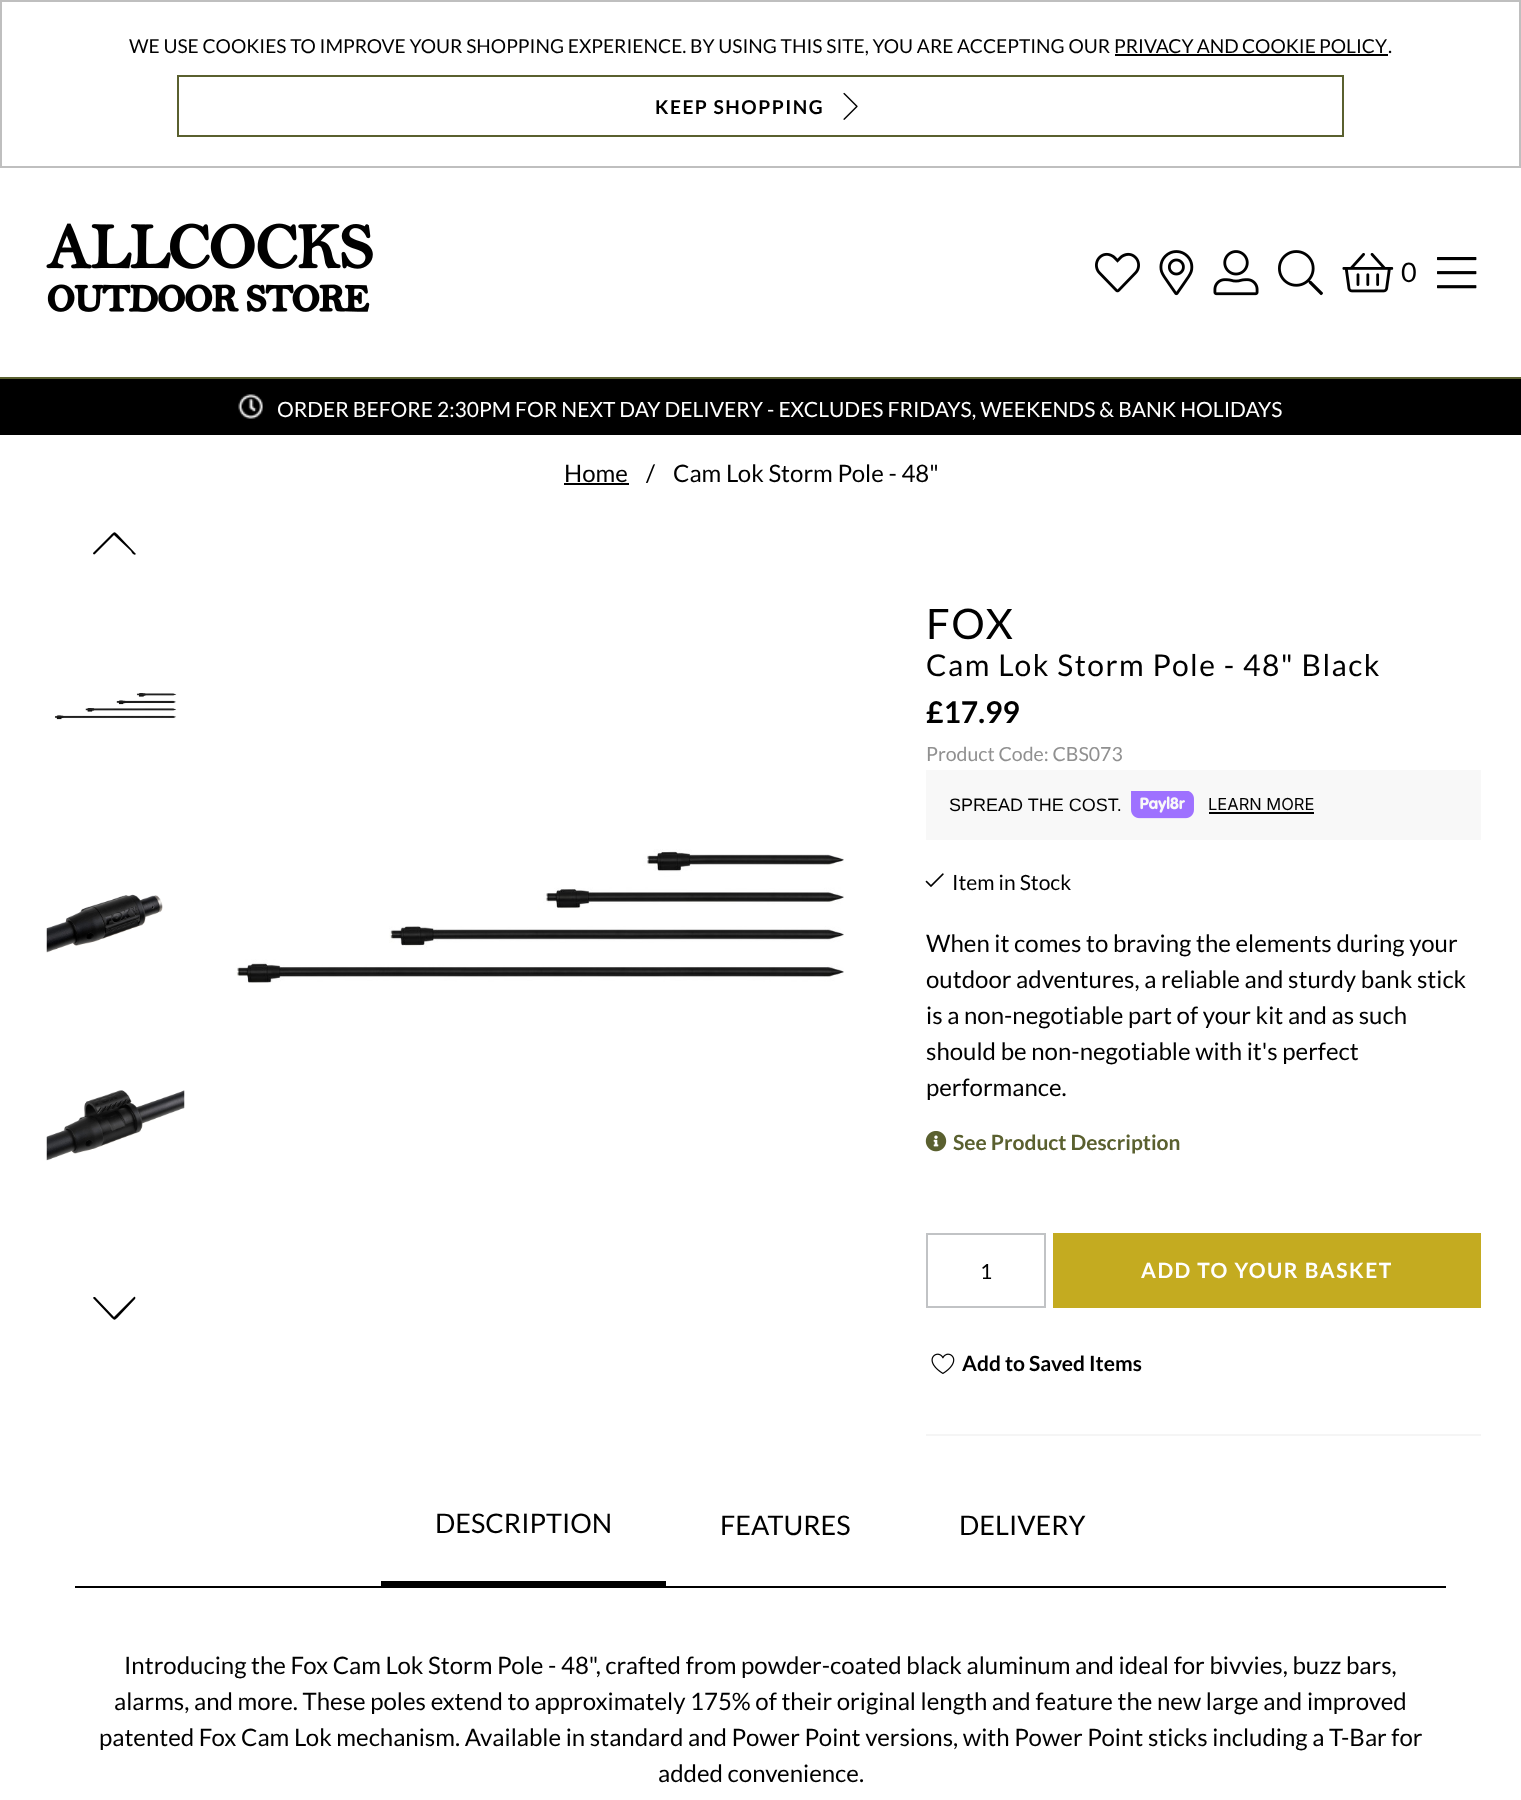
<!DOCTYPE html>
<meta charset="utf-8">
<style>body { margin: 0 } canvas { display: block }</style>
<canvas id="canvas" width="1521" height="1800"></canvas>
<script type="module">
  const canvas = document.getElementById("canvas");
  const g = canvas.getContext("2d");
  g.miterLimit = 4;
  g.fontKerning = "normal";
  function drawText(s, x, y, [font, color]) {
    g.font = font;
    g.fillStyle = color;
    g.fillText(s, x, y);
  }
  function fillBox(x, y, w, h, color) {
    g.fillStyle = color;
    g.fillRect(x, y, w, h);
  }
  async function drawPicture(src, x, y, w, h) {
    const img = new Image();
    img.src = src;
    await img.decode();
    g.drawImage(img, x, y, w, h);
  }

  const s1 = ["19.2px Lato", "#000000"];
  const s2 = ["bold 19.2px Lato", "#000000"];
  const s3 = ["27px Lato", "#000000"];
  const s4 = ["21px Lato", "#FFFFFF"];
  const s5 = ["24px Lato", "#000000"];
  const s6 = ["42px Lato", "#000000"];
  const s7 = ["30px Lato", "#000000"];
  const s8 = ["bold 30px Lato", "#000000"];
  const s9 = ["19.5px Lato", "#909090"];
  const s10 = ["18px Liberation Sans", "#000000"];
  const s11 = ["16.5px Inter", "#000000"];
  const s12 = ["21px Lato", "#000000"];
  const s13 = ["bold 21px Lato", "#5A602F"];
  const s14 = ["bold 21px Lato", "#FFFFFF"];
  const s15 = ["bold 21px Lato", "#000000"];

  fillBox(0, 0, 1521, 1800, "#FFFFFF");
  fillBox(0, 377, 1521, 2, "#5A602F");
  g.strokeStyle = "#BFBFBF";
  g.lineWidth = 2;
  g.strokeRect(1, 1, 1519, 166);
  drawText("WE USE COOKIES TO IMPROVE YOUR SHOPPING EXPERIENCE. BY USING THIS SITE, YOU ARE ACCEPTING OUR", 129, 53, s1);
  g.wordSpacing = "-0.5px";
  drawText("PRIVACY AND COOKIE POLICY", 1114, 53, s1);
  fillBox(1115, 54, 273, 2, "#000000");
  g.wordSpacing = "0px";
  drawText(".", 1388, 53, s1);
  g.strokeStyle = "#5A602F";
  g.strokeRect(178, 76, 1165, 60);
  g.letterSpacing = "1.5px";
  drawText("KEEP SHOPPING", 655, 114, s2);
  await drawPicture("pic1.png", 843, 92, 15, 28);
  await drawPicture("pic2.png", 46, 223, 327, 89);
  await drawPicture("pic3.png", 1095, 252, 45, 41);
  await drawPicture("pic4.png", 1159, 250, 35, 46);
  await drawPicture("pic5.png", 1213, 250, 46, 46);
  await drawPicture("pic6.png", 1278, 250, 45, 46);
  await drawPicture("pic7.png", 1342, 253, 52, 40);
  g.letterSpacing = "0px";
  drawText("0", 1401, 282, s3);
  await drawPicture("pic8.png", 1437, 257, 40, 32);
  fillBox(0, 379, 1521, 56, "#000000");
  await drawPicture("pic9.png", 238, 394, 25, 25);
  drawText("ORDER BEFORE 2:30PM FOR NEXT DAY DELIVERY - EXCLUDES FRIDAYS, WEEKENDS & BANK HOLIDAYS", 277, 417, s4);
  drawText("Home", 564, 482, s5);
  fillBox(564, 483, 65, 2, "#000000");
  drawText("/", 646, 482, s5);
  drawText("Cam Lok Storm Pole - 48\"", 673, 482, s5);
  g.beginPath();
  g.moveTo(93, 553);
  g.bezierCurveTo(93, 554, 94, 555, 95, 554);
  g.lineTo(114, 535);
  g.lineTo(131, 551);
  g.bezierCurveTo(132, 553, 134, 556, 136, 554);
  g.lineTo(135, 553);
  g.lineTo(119, 536);
  g.bezierCurveTo(114, 531, 115, 531, 110, 536);
  g.closePath();
  g.fill();
  await drawPicture("pic10.png", 54, 693, 123, 27);
  await drawPicture("pic11.png", 46, 894, 117, 59);
  await drawPicture("pic12.png", 46, 1090, 139, 71);
  await drawPicture("pic13.png", 236, 849, 608, 134);
  g.beginPath();
  g.moveTo(93, 1298);
  g.bezierCurveTo(93, 1297, 94, 1297, 95, 1297);
  g.lineTo(114, 1317);
  g.lineTo(134, 1297);
  g.bezierCurveTo(135, 1296, 136, 1298, 135, 1299);
  g.lineTo(119, 1316);
  g.bezierCurveTo(114, 1321, 115, 1321, 110, 1316);
  g.closePath();
  g.fill();
  g.letterSpacing = "1.5px";
  drawText("FOX", 926, 639, s6);
  drawText("Cam Lok Storm Pole - 48\" Black", 926, 676, s7);
  g.letterSpacing = "0px";
  drawText("£17.99", 926, 723, s8);
  drawText("Product Code: CBS073", 926, 761, s9);
  fillBox(926, 770, 555, 70, "#F8F8F8");
  drawText("SPREAD THE COST.", 949, 811, s10);
  await drawPicture("pic14.png", 1131, 791, 63, 28);
  drawText("LEARN MORE", 1208, 810, s11);
  fillBox(1209, 812, 105, 2, "#000000");
  await drawPicture("pic15.png", 925, 873, 19, 14);
  drawText("Item in Stock", 952, 890, s12);
  drawText("When it comes to braving the elements during your", 926, 952, s5);
  drawText("outdoor adventures, a reliable and sturdy bank stick", 926, 988, s5);
  drawText("is a non-negotiable part of your kit and as such", 926, 1024, s5);
  drawText("should be non-negotiable with it's perfect", 926, 1060, s5);
  drawText("performance.", 926, 1096, s5);
  await drawPicture("pic16.png", 925, 1131, 22, 21);
  drawText("See Product Description", 953, 1150, s13);
  g.strokeStyle = "#C1C3C5";
  g.strokeRect(927, 1234, 118, 73);
  drawText("1", 980, 1279, s12);
  fillBox(1053, 1233, 428, 75, "#C4AB20");
  g.letterSpacing = "1.5px";
  drawText("ADD TO YOUR BASKET", 1141, 1278, s14);
  await drawPicture("pic17.png", 931, 1353, 24, 21);
  g.letterSpacing = "0px";
  drawText("Add to Saved Items", 962, 1371, s15);
  fillBox(926, 1434, 555, 2, "#F5F5F5");
  fillBox(381, 1581, 285, 5, "#000000");
  drawText("DESCRIPTION", 435, 1533, s3);
  drawText("FEATURES", 720, 1535, s3);
  drawText("DELIVERY", 959, 1535, s3);
  fillBox(75, 1586, 1371, 2, "#000000");
  drawText("Introducing the Fox Cam Lok Storm Pole - 48\", crafted from powder-coated black aluminum and ideal for bivvies, buzz bars,", 124, 1674, s5);
  drawText("alarms, and more. These poles extend to approximately 175% of their original length and feature the new large and improved", 114, 1710, s5);
  drawText("patented Fox Cam Lok mechanism. Available in standard and Power Point versions, with Power Point sticks including a T-Bar for", 99, 1746, s5);
  drawText("added convenience.", 658, 1782, s5);
</script>
